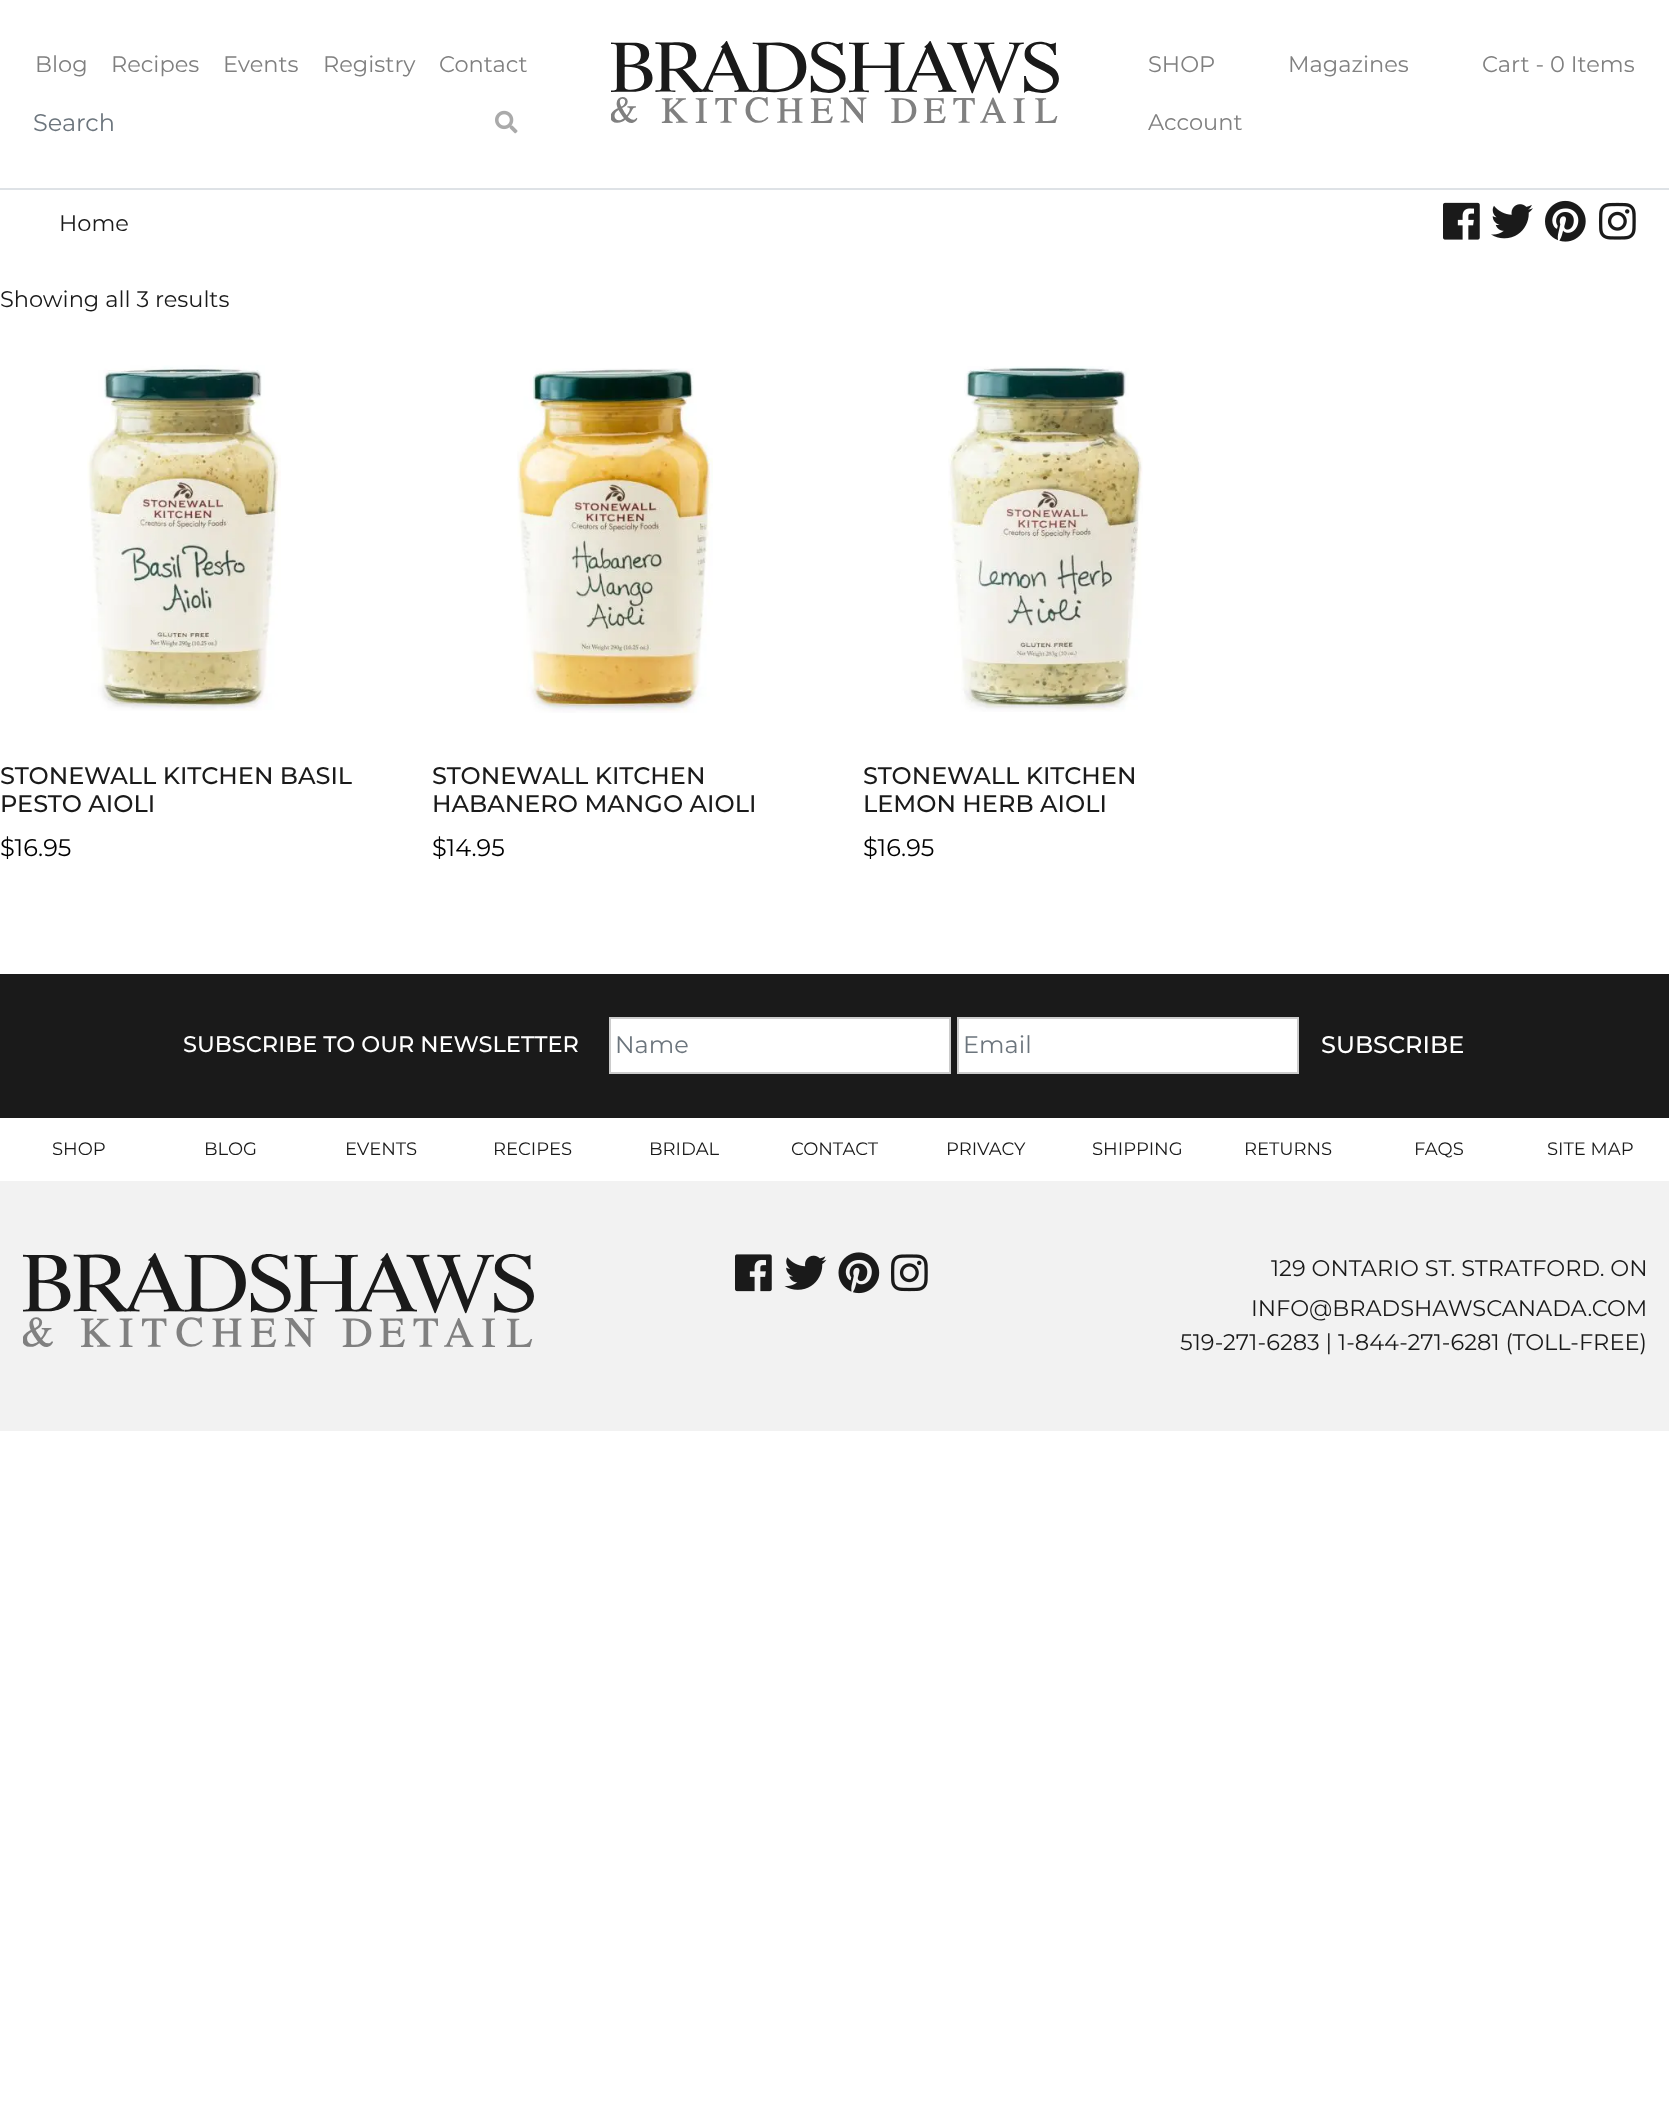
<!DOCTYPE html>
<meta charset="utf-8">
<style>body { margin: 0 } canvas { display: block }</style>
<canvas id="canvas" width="1669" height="2116"></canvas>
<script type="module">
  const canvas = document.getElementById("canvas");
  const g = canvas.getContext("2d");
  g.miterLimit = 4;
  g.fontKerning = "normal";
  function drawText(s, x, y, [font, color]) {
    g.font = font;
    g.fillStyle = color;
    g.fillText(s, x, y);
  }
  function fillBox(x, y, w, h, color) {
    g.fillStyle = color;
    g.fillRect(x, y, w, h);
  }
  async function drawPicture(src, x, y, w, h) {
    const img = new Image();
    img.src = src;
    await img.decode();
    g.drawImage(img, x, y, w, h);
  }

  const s1 = ["22.5px Montserrat", "#808080"];
  const s2 = ["24px Montserrat", "#6C757D"];
  const s3 = ["22.5px Montserrat", "#1A1A1A"];
  const s4 = ["500 24px Montserrat", "#1A1A1A"];
  const s5 = ["24px Montserrat", "#000000"];
  const s6 = ["500 22.5px Montserrat", "#FFFFFF"];
  const s7 = ["500 24px Montserrat", "#FFFFFF"];
  const s8 = ["18px Montserrat", "#1A1A1A"];

  fillBox(0, 0, 1669, 2116, "#FFFFFF");
  fillBox(0, 188, 1669, 2, "#DEE2E6");
  drawText("Blog", 35, 72, s1);
  drawText("Recipes", 111, 72, s1);
  drawText("Events", 223, 72, s1);
  drawText("Registry", 323, 72, s1);
  drawText("Contact", 439, 72, s1);
  drawText("Search", 33, 131, s2);
  await drawPicture("pic1.png", 495, 110, 23, 24);
  await drawPicture("pic2.png", 611, 41, 448, 82);
  drawText("SHOP", 1148, 72, s1);
  drawText("Magazines", 1288, 72, s1);
  drawText("Cart - 0 Items", 1482, 72, s1);
  drawText("Account", 1148, 130, s1);
  drawText("Home", 59, 231, s3);
  await drawPicture("pic3.png", 1443, 202, 37, 38);
  await drawPicture("pic4.png", 1491, 204, 42, 35);
  await drawPicture("pic5.png", 1545, 200, 41, 42);
  await drawPicture("pic6.png", 1599, 202, 37, 38);
  drawText("Showing all 3 results", 0, 307, s3);
  await drawPicture("pic7.png", 87, 365, 194, 346);
  drawText("STONEWALL KITCHEN BASIL", 0, 784, s4);
  drawText("PESTO AIOLI", 0, 812, s4);
  drawText("$16.95", 0, 856, s5);
  await drawPicture("pic8.png", 517, 368, 196, 345);
  drawText("STONEWALL KITCHEN", 432, 784, s4);
  drawText("HABANERO MANGO AIOLI", 432, 812, s4);
  drawText("$14.95", 432, 856, s5);
  await drawPicture("pic9.png", 948, 366, 195, 346);
  drawText("STONEWALL KITCHEN", 863, 784, s4);
  drawText("LEMON HERB AIOLI", 863, 812, s4);
  drawText("$16.95", 863, 856, s5);
  fillBox(0, 974, 1669, 144, "#1A1A1A");
  drawText("SUBSCRIBE TO OUR NEWSLETTER", 183, 1052, s6);
  g.beginPath();
  g.rect(610, 1018, 340, 55);
  g.fill();
  g.strokeStyle = "#CCCCCC";
  g.lineWidth = 2;
  g.stroke();
  drawText("Name", 615, 1053, s2);
  g.fillStyle = "#FFFFFF";
  g.beginPath();
  g.rect(958, 1018, 340, 55);
  g.fill();
  g.stroke();
  drawText("Email", 963, 1053, s2);
  drawText("SUBSCRIBE", 1321, 1053, s7);
  drawText("SHOP", 52, 1155, s8);
  drawText("BLOG", 204, 1155, s8);
  drawText("EVENTS", 345, 1155, s8);
  drawText("RECIPES", 493, 1155, s8);
  drawText("BRIDAL", 649, 1155, s8);
  drawText("CONTACT", 791, 1155, s8);
  drawText("PRIVACY", 946, 1155, s8);
  drawText("SHIPPING", 1092, 1155, s8);
  drawText("RETURNS", 1244, 1155, s8);
  drawText("FAQS", 1414, 1155, s8);
  drawText("SITE MAP", 1547, 1155, s8);
  fillBox(0, 1181, 1669, 250, "#F2F2F2");
  await drawPicture("pic10.png", 23, 1253, 511, 94);
  await drawPicture("pic11.png", 735, 1254, 37, 38);
  await drawPicture("pic12.png", 784, 1255, 43, 35);
  await drawPicture("pic13.png", 838, 1252, 42, 42);
  await drawPicture("pic14.png", 891, 1254, 37, 38);
  drawText("129 ONTARIO ST. STRATFORD. ON", 1271, 1276, s3);
  drawText("INFO@BRADSHAWSCANADA.COM", 1251, 1316, s3);
  drawText("519-271-6283 | 1-844-271-6281 (TOLL-FREE)", 1180, 1350, s3);
</script>
